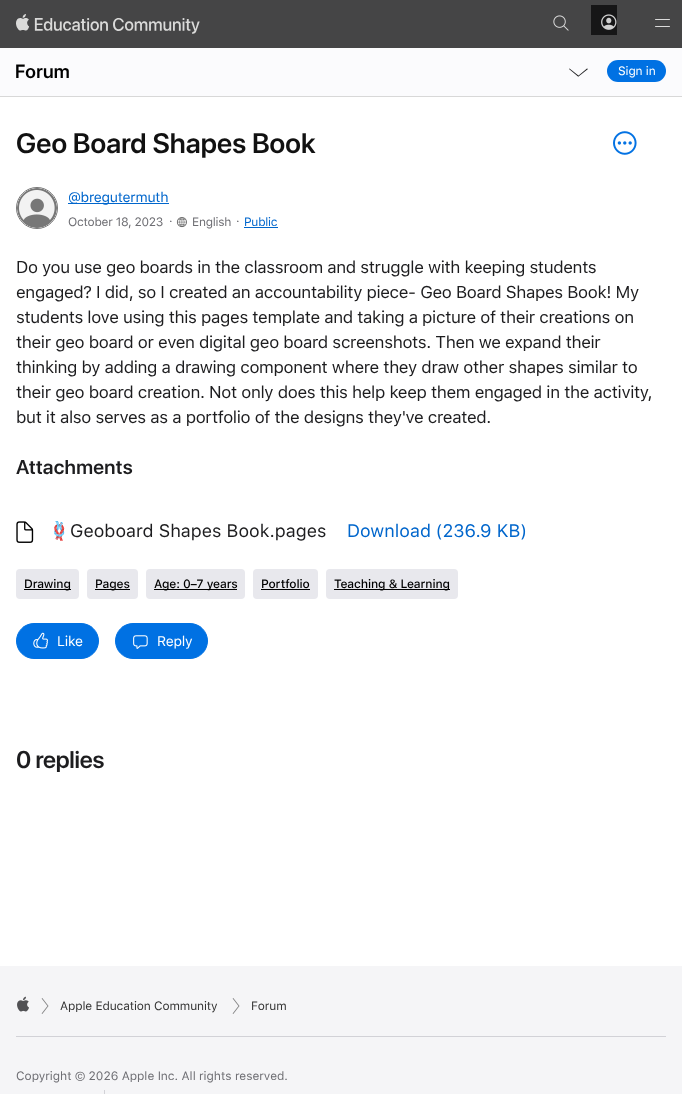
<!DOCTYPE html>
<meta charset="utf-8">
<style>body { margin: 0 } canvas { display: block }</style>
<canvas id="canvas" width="682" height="1094"></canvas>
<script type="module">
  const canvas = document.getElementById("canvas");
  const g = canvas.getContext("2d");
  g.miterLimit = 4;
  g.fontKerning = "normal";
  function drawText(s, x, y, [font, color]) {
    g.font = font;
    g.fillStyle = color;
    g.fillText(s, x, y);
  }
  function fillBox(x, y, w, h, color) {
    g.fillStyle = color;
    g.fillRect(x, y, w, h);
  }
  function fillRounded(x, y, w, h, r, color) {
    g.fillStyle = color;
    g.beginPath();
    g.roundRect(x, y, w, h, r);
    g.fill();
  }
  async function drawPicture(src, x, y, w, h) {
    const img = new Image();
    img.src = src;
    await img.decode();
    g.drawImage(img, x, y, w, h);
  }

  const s1 = ["600 19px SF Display", "#000000"];
  const s2 = ["12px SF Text", "#FFFFFF"];
  const s3 = ["600 28px SF Display", "#111111"];
  const s4 = ["14px SF Text", "#0066CC"];
  const s5 = ["12px SF Text", "#6E6E73"];
  const s6 = ["12px SF Text", "#0066CC"];
  const s7 = ["17px SF Text", "#1D1D1F"];
  const s8 = ["600 20px SF Display", "#1D1D1F"];
  const s9 = ["18px Noto Color Emoji", "#1D1D1F"];
  const s10 = ["18px SF Text", "#1D1D1F"];
  const s11 = ["18px SF Text", "#0066CC"];
  const s12 = ["500 12px SF Text", "#000000"];
  const s13 = ["14px SF Text", "#FFFFFF"];
  const s14 = ["600 24px SF Display", "#1D1D1F"];
  const s15 = ["12px SF Text", "#333333"];

  fillBox(0, 0, 682, 1094, "#FFFFFF");
  fillBox(0, 0, 682, 48, "#454546");
  await drawPicture("pic1.png", 16, 14, 184, 20);
  await drawPicture("pic2.png", 553, 15, 16, 16);
  fillBox(591, 5, 26, 30, "#161617");
  await drawPicture("pic3.png", 601, 14, 16, 16);
  fillRounded(655, 19, 15, 1, 0.5, "#DADADA");
  fillRounded(655, 26, 15, 1, 0.5, "#DADADA");
  fillBox(0, 48, 682, 48, "#FBFBFD");
  g.letterSpacing = "0.25px";
  drawText("Forum", 15, 78, s1);
  fillBox(0, 96, 682, 1, "#D8D8D8");
  g.fillStyle = "#1D1D1F";
  g.beginPath();
  g.moveTo(578, 76);
  g.lineTo(587, 68.5);
  g.lineTo(588, 69);
  g.lineTo(578.5, 76.5);
  g.closePath();
  g.fill();
  g.beginPath();
  g.moveTo(569.5, 68.5);
  g.lineTo(579, 76);
  g.lineTo(578, 76.5);
  g.lineTo(569, 69);
  g.closePath();
  g.fill();
  fillRounded(607, 60, 59, 22, 11, "#0071E3");
  g.letterSpacing = "-0.1px";
  drawText("Sign in", 618, 75, s2);
  g.letterSpacing = "0.1px";
  drawText("Geo Board Shapes Book", 16, 153, s3);
  await drawPicture("pic4.png", 613, 131, 24, 24);
  g.beginPath();
  g.arc(37, 208, 20.5, 0, Math.PI * 2);
  g.strokeStyle = "#777777";
  g.stroke();
  await drawPicture("pic5.png", 17, 188, 40, 40);
  fillBox(68, 203, 101, 1, "#0066CC");
  g.letterSpacing = "-0.25px";
  drawText("@bregutermuth", 68, 202, s4);
  drawText("October 18, 2023", 68, 226, s5);
  drawText(".", 169, 222, s5);
  await drawPicture("pic6.png", 176, 217, 11, 11);
  drawText("English", 192, 226, s5);
  drawText(".", 236, 222, s5);
  drawText("Public", 244, 226, s6);
  fillBox(244, 227, 34, 1, "#0066CC");
  g.letterSpacing = "-0.37px";
  drawText("Do you use geo boards in the classroom and struggle with keeping students", 16, 273, s7);
  drawText("engaged? I did, so I created an accountability piece- Geo Board Shapes Book! My", 16, 298, s7);
  drawText("students love using this pages template and taking a picture of their creations on", 16, 323, s7);
  drawText("their geo board or even digital geo board screenshots. Then we expand their", 16, 348, s7);
  drawText("thinking by adding a drawing component where they draw other shapes similar to", 16, 373, s7);
  drawText("their geo board creation. Not only does this help keep them engaged in the activity,", 16, 398, s7);
  drawText("but it also serves as a portfolio of the designs they've created.", 16, 423, s7);
  g.letterSpacing = "0.25px";
  drawText("Attachments", 16, 474, s8);
  await drawPicture("pic7.png", 16, 521, 18, 22);
  g.letterSpacing = "0px";
  drawText("🪢", 48, 537, s9);
  drawText("Geoboard Shapes Book.pages", 70, 537, s10);
  drawText("Download (236.9 KB)", 347, 537, s11);
  fillRounded(16, 569, 63, 30, 4, "#E8E8ED");
  fillBox(24, 589, 47, 1, "#000000");
  g.letterSpacing = "-0.1px";
  drawText("Drawing", 24, 588, s12);
  fillRounded(87, 569, 51, 30, 4, "#E8E8ED");
  fillBox(95, 589, 35, 1, "#000000");
  drawText("Pages", 95, 588, s12);
  fillRounded(146, 569, 99, 30, 4, "#E8E8ED");
  fillBox(154, 589, 83, 1, "#000000");
  drawText("Age: 0–7 years", 154, 588, s12);
  fillRounded(253, 569, 65, 30, 4, "#E8E8ED");
  drawText("Portfolio", 261, 588, s12);
  fillBox(261, 589, 49, 1, "#000000");
  fillRounded(326, 569, 132, 30, 4, "#E8E8ED");
  fillBox(334, 589, 116, 1, "#000000");
  drawText("Teaching & Learning", 334, 588, s12);
  g.fillStyle = "#0071E3";
  g.beginPath();
  g.roundRect(16.5, 623.5, 82, 35, 17.5);
  g.fill();
  g.strokeStyle = "#0071E3";
  g.stroke();
  await drawPicture("pic8.png", 33, 632, 15, 17);
  g.letterSpacing = "-0.25px";
  drawText("Like", 57, 646, s13);
  g.fillStyle = "#0071E3";
  g.beginPath();
  g.roundRect(115.5, 623.5, 92, 35, 17.5);
  g.fill();
  g.stroke();
  await drawPicture("pic9.png", 133, 635, 15, 14);
  drawText("Reply", 157, 646, s13);
  drawText("0 replies", 16, 768, s14);
  fillBox(0, 966, 682, 128, "#F5F5F7");
  fillBox(16, 1036, 650, 1, "#D2D2D7");
  await drawPicture("pic10.png", 17, 996, 12, 16);
  await drawPicture("pic11.png", 41, 998, 8, 16);
  g.letterSpacing = "-0.1px";
  drawText("Apple Education Community", 60, 1010, s15);
  await drawPicture("pic11.png", 232, 998, 8, 16);
  drawText("Forum", 251, 1010, s15);
  g.letterSpacing = "0px";
  drawText("Copyright © 2026 Apple Inc. All rights reserved.", 16, 1080, s5);
  fillBox(104, 1090, 1, 4, "#D2D2D7");
</script>
